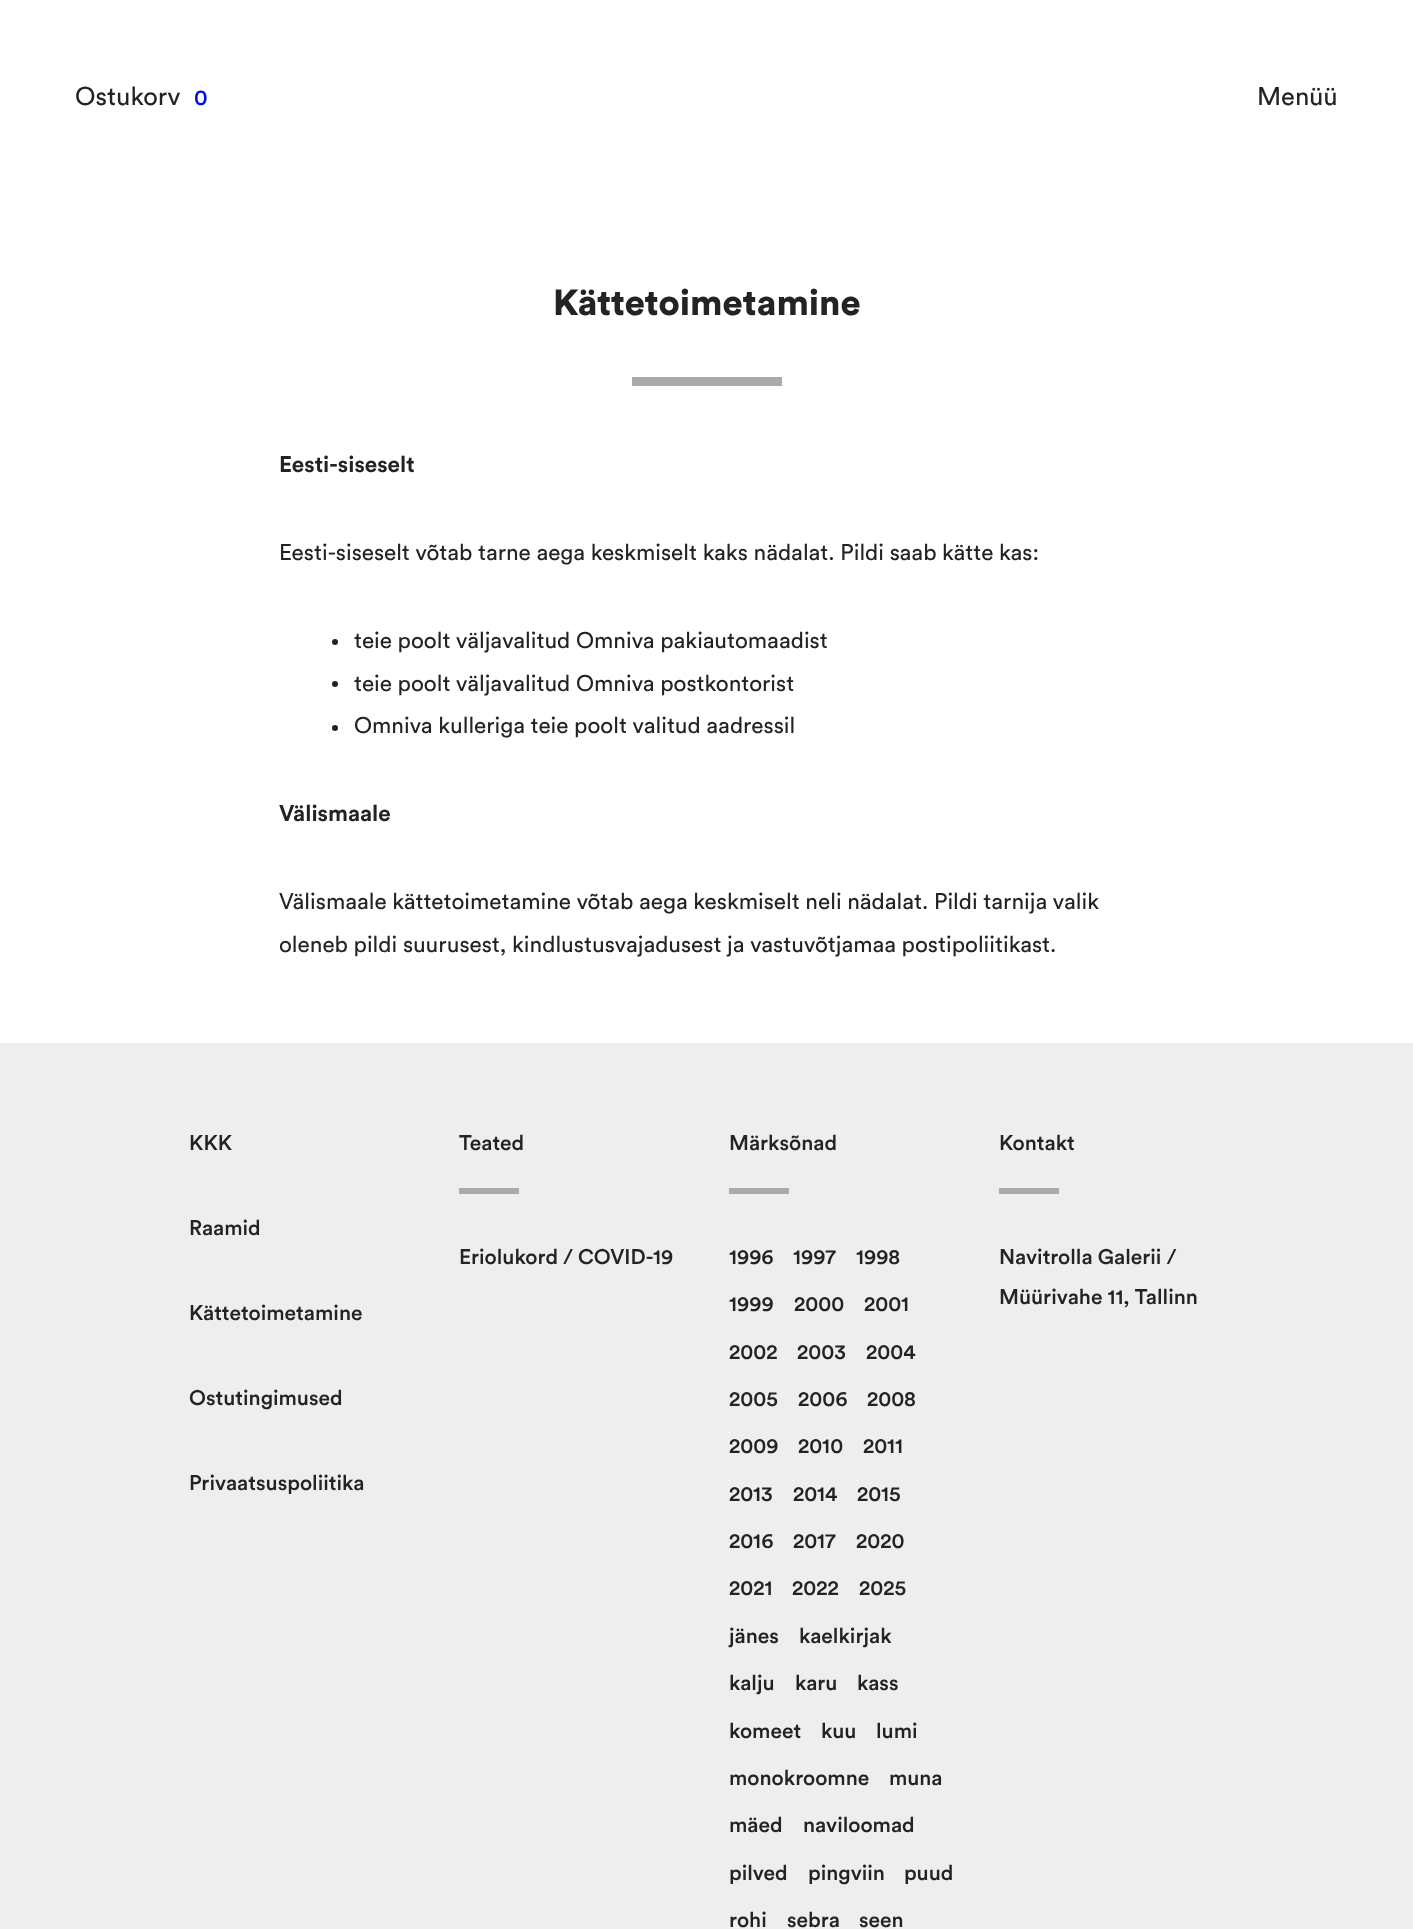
<!DOCTYPE html>
<meta charset="utf-8">
<style>body { margin: 0 } canvas { display: block }</style>
<canvas id="canvas" width="1413" height="1929"></canvas>
<script type="module">
  const canvas = document.getElementById("canvas");
  const g = canvas.getContext("2d");
  g.miterLimit = 4;
  g.fontKerning = "normal";
  function drawText(s, x, y, [font, color]) {
    g.font = font;
    g.fillStyle = color;
    g.fillText(s, x, y);
  }
  function fillBox(x, y, w, h, color) {
    g.fillStyle = color;
    g.fillRect(x, y, w, h);
  }

  const s1 = ["25.5px Circular", "#222326"];
  const s2 = ["500 22px Circular", "#000BEF"];
  const s3 = ["900 36px Circular", "#222326"];
  const s4 = ["bold 22.5px Circular", "#222326"];
  const s5 = ["22.5px Circular", "#222326"];
  const s6 = ["500 21px Circular", "#222326"];

  fillBox(0, 0, 1413, 1929, "#FFFFFF");
  drawText("Ostukorv", 75, 105, s1);
  drawText("0", 194, 105, s2);
  drawText("Menüü", 1257, 105, s1);
  drawText("Kättetoimetamine", 553, 315, s3);
  fillBox(632, 377, 150, 9, "#AAAAAA");
  drawText("Eesti-siseselt", 279, 472, s4);
  drawText("Eesti-siseselt võtab tarne aega keskmiselt kaks nädalat. Pildi saab kätte kas:", 279, 560, s5);
  g.beginPath();
  g.arc(335, 642, 3, 0, Math.PI * 2);
  g.fill();
  drawText("teie poolt väljavalitud Omniva pakiautomaadist", 354, 648, s5);
  g.beginPath();
  g.arc(335, 684, 3, 0, Math.PI * 2);
  g.fill();
  drawText("teie poolt väljavalitud Omniva postkontorist", 354, 691, s5);
  g.beginPath();
  g.arc(335, 728, 3, 0, Math.PI * 2);
  g.fill();
  drawText("Omniva kulleriga teie poolt valitud aadressil", 354, 733, s5);
  drawText("Välismaale", 279, 821, s4);
  drawText("Välismaale kättetoimetamine võtab aega keskmiselt neli nädalat. Pildi tarnija valik", 279, 909, s5);
  drawText("oleneb pildi suurusest, kindlustusvajadusest ja vastuvõtjamaa postipoliitikast.", 279, 952, s5);
  fillBox(0, 1043, 1413, 886, "#EDEEED");
  drawText("KKK", 189, 1150, s6);
  drawText("Raamid", 189, 1235, s6);
  drawText("Kättetoimetamine", 189, 1320, s6);
  drawText("Ostutingimused", 189, 1405, s6);
  drawText("Privaatsuspoliitika", 189, 1490, s6);
  drawText("Teated", 459, 1150, s6);
  fillBox(459, 1188, 60, 6, "#AAAAAA");
  drawText("Eriolukord / COVID-19", 459, 1264, s6);
  drawText("Märksõnad", 729, 1150, s6);
  fillBox(729, 1188, 60, 6, "#AAAAAA");
  drawText("1996", 729, 1264, s6);
  drawText("1997", 793, 1264, s6);
  drawText("1998", 856, 1264, s6);
  drawText("1999", 729, 1311, s6);
  drawText("2000", 794, 1311, s6);
  drawText("2001", 864, 1311, s6);
  drawText("2002", 729, 1359, s6);
  drawText("2003", 797, 1359, s6);
  drawText("2004", 866, 1359, s6);
  drawText("2005", 729, 1406, s6);
  drawText("2006", 798, 1406, s6);
  drawText("2008", 867, 1406, s6);
  drawText("2009", 729, 1453, s6);
  drawText("2010", 798, 1453, s6);
  drawText("2011", 863, 1453, s6);
  drawText("2013", 729, 1501, s6);
  drawText("2014", 793, 1501, s6);
  drawText("2015", 857, 1501, s6);
  drawText("2016", 729, 1548, s6);
  drawText("2017", 793, 1548, s6);
  drawText("2020", 856, 1548, s6);
  drawText("2021", 729, 1595, s6);
  drawText("2022", 792, 1595, s6);
  drawText("2025", 859, 1595, s6);
  drawText("jänes", 729, 1643, s6);
  drawText("kaelkirjak", 799, 1643, s6);
  drawText("kalju", 729, 1690, s6);
  drawText("karu", 795, 1690, s6);
  drawText("kass", 857, 1690, s6);
  drawText("komeet", 729, 1738, s6);
  drawText("kuu", 821, 1738, s6);
  drawText("lumi", 876, 1738, s6);
  drawText("monokroomne", 729, 1785, s6);
  drawText("muna", 889, 1785, s6);
  drawText("mäed", 729, 1832, s6);
  drawText("naviloomad", 803, 1832, s6);
  drawText("pilved", 729, 1880, s6);
  drawText("pingviin", 808, 1880, s6);
  drawText("puud", 904, 1880, s6);
  drawText("rohi", 729, 1927, s6);
  drawText("sebra", 787, 1927, s6);
  drawText("seen", 859, 1927, s6);
  drawText("Kontakt", 999, 1150, s6);
  fillBox(999, 1188, 60, 6, "#AAAAAA");
  drawText("Navitrolla Galerii /", 999, 1264, s6);
  drawText("Müürivahe 11, Tallinn", 999, 1304, s6);
</script>
